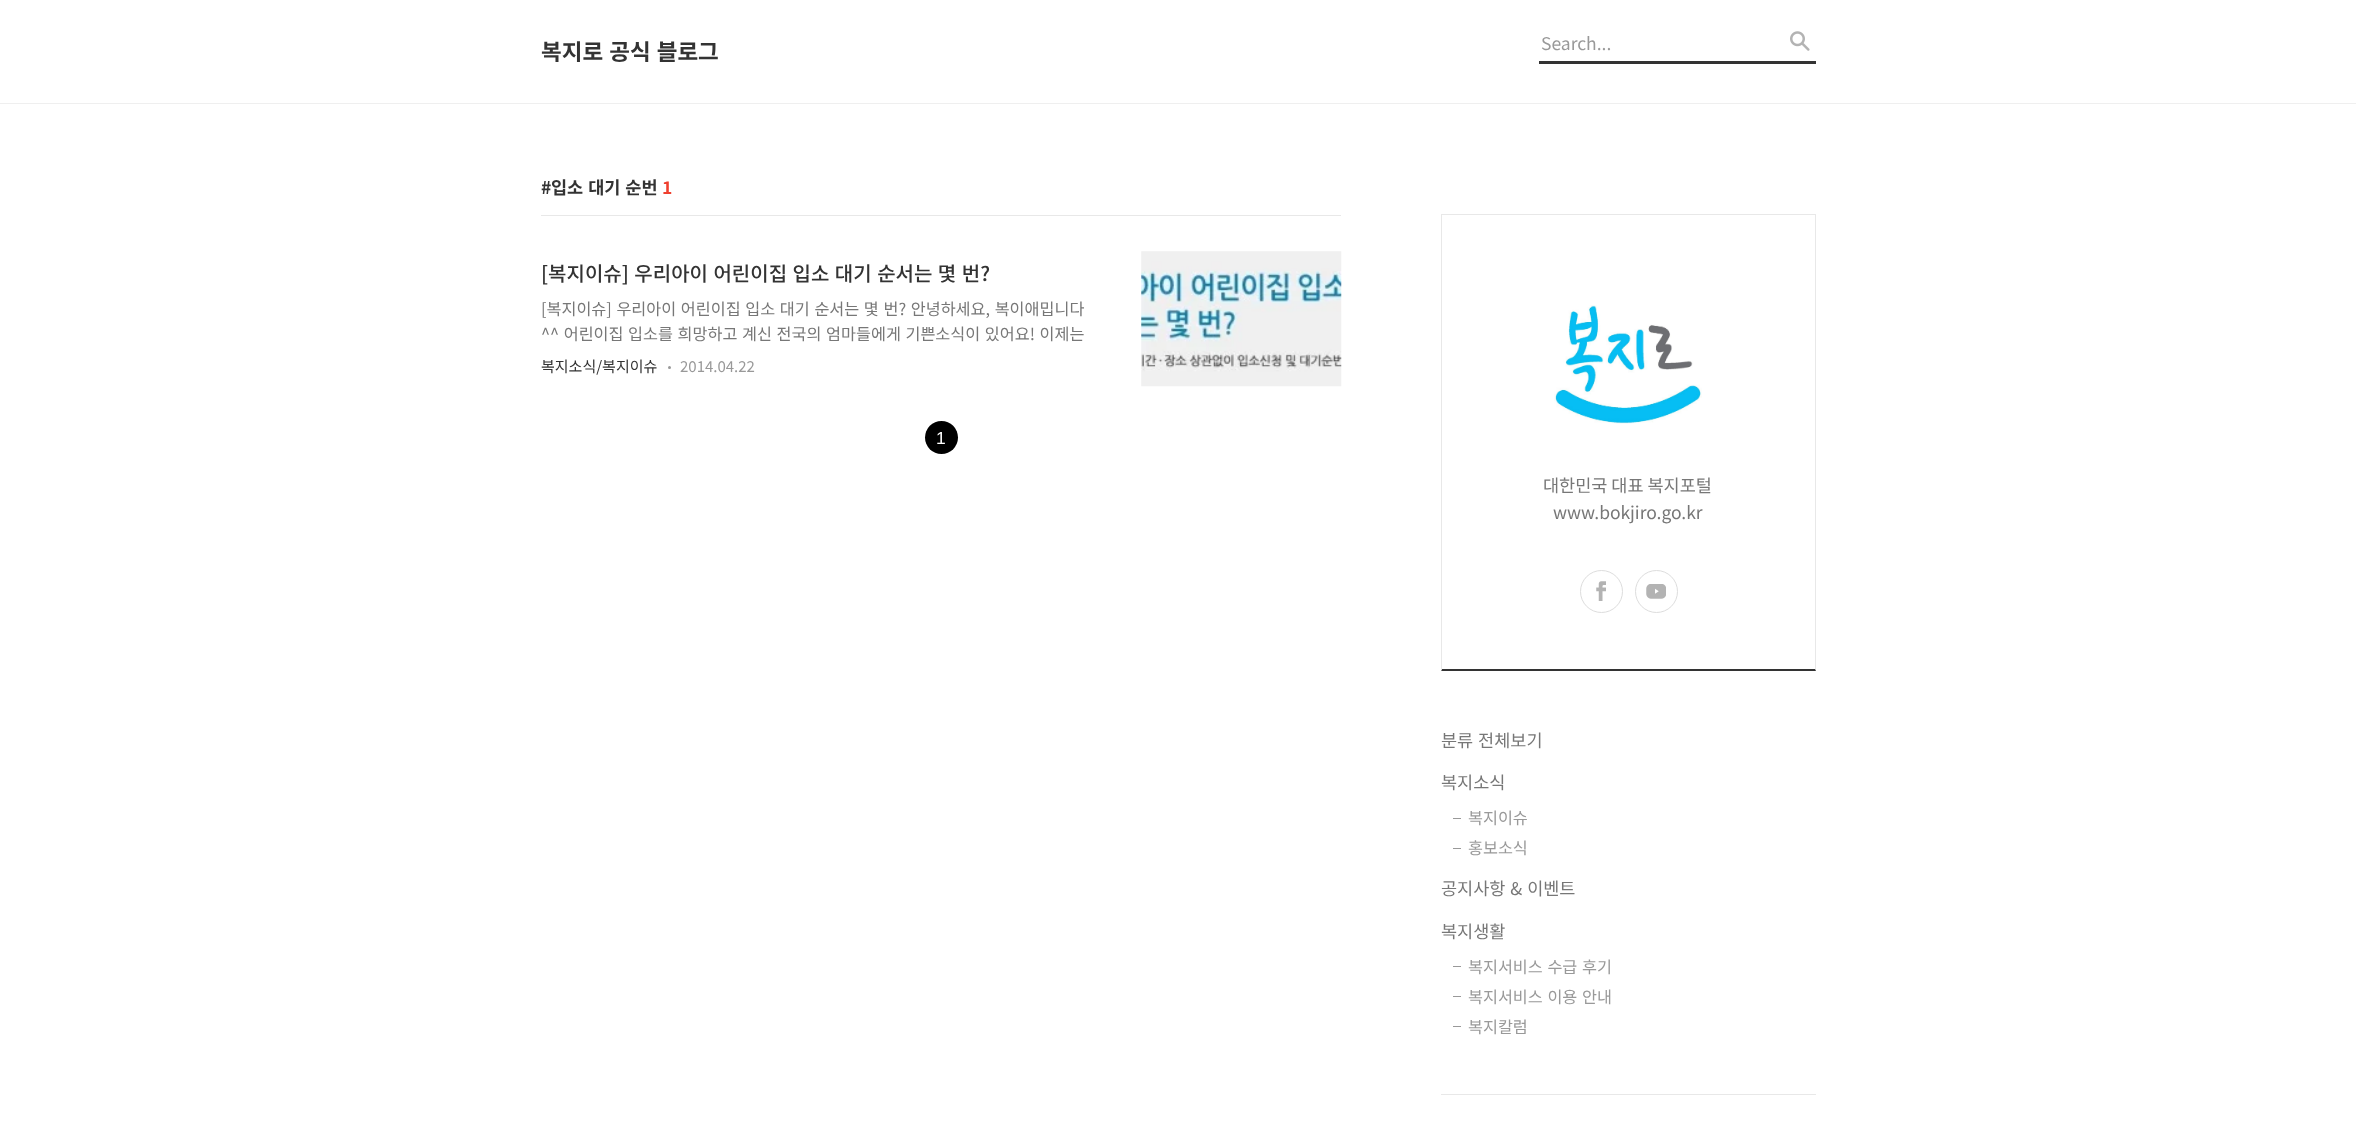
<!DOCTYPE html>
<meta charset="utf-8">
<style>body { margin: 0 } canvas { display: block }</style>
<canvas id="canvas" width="2356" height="1126"></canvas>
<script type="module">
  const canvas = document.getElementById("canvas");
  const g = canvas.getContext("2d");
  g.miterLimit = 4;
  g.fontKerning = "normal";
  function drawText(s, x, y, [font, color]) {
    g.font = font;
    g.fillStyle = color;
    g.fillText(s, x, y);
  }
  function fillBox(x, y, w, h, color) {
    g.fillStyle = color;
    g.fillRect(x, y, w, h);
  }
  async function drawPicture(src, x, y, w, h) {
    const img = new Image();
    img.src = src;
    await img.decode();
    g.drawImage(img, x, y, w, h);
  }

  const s1 = ["bold 22.5px Noto Sans KR", "#333333"];
  const s2 = ["17.5px Noto Sans KR", "#999999"];
  const s3 = ["bold 17.5px Noto Sans KR", "#333333"];
  const s4 = ["bold 17.5px Noto Sans KR", "#EF402F"];
  const s5 = ["500 20px Noto Sans KR", "#333333"];
  const s6 = ["16.25px Noto Sans KR", "#777777"];
  const s7 = ["15px Noto Sans KR", "#333333"];
  const s8 = ["15px Noto Sans KR", "#999999"];
  const s9 = ["17.5px Liberation Sans", "#FFFFFF"];
  const s10 = ["17.5px Noto Sans KR", "#777777"];
  const s11 = ["16.25px Noto Sans KR", "#999999"];

  fillBox(0, 0, 2356, 1126, "#FFFFFF");
  fillBox(0, 103, 2356, 1, "#EFEFEF");
  g.wordSpacing = "1px";
  drawText("복지로 공식 블로그", 541, 60, s1);
  await drawPicture("pic1.png", 1790, 31, 20, 20);
  fillBox(1539, 61, 277, 3, "#333333");
  g.wordSpacing = "0px";
  drawText("Search...", 1541, 50, s2);
  fillBox(541, 215, 800, 1, "#E8E8E8");
  drawText("#", 541, 194, s3);
  g.wordSpacing = "1px";
  drawText("입소 대기 순번", 551, 194, s3);
  g.wordSpacing = "0px";
  drawText("1", 662, 194, s4);
  g.wordSpacing = "1px";
  drawText("[복지이슈] 우리아이 어린이집 입소 대기 순서는 몇 번?", 541, 281, s5);
  drawText("[복지이슈] 우리아이 어린이집 입소 대기 순서는 몇 번? 안녕하세요, 복이애밉니다", 541, 315, s6);
  drawText("^^ 어린이집 입소를 희망하고 계신 전국의 엄마들에게 기쁜소식이 있어요! 이제는", 541, 340, s6);
  g.wordSpacing = "0px";
  drawText("복지소식/복지이슈", 541, 372, s7);
  g.fillStyle = "#999999";
  g.beginPath();
  g.arc(669.5, 367.5, 1.5, 0, Math.PI * 2);
  g.fill();
  drawText("2014.04.22", 680, 372, s8);
  await drawPicture("pic2.png", 1141, 251, 201, 136);
  g.fillStyle = "#000000";
  g.beginPath();
  g.arc(941.5, 437.5, 16.5, 0, Math.PI * 2);
  g.fill();
  drawText("1", 936, 444, s9);
  fillBox(1441, 214, 375, 1, "#E8E8E8");
  g.beginPath();
  g.moveTo(1816, 214);
  g.lineTo(1816, 671);
  g.lineTo(1815, 669);
  g.lineTo(1815, 215);
  g.closePath();
  g.fill();
  g.fillStyle = "#333333";
  g.beginPath();
  g.moveTo(1816, 671);
  g.lineTo(1441, 671);
  g.lineTo(1442, 669);
  g.lineTo(1815, 669);
  g.closePath();
  g.fill();
  g.fillStyle = "#E8E8E8";
  g.beginPath();
  g.moveTo(1441, 671);
  g.lineTo(1441, 214);
  g.lineTo(1442, 215);
  g.lineTo(1442, 669);
  g.closePath();
  g.fill();
  await drawPicture("pic3.png", 1554, 305, 148, 119);
  drawText("대한민국 대표 복지포털", 1543, 492, s10);
  drawText("www.bokjiro.go.kr", 1553, 519, s10);
  g.beginPath();
  g.arc(1601.5, 591.5, 21, 0, Math.PI * 2);
  g.strokeStyle = "#DDDDDD";
  g.stroke();
  await drawPicture("pic4.png", 1596, 581, 10, 20);
  g.beginPath();
  g.arc(1656.5, 591.5, 21, 0, Math.PI * 2);
  g.stroke();
  await drawPicture("pic5.png", 1646, 584, 20, 15);
  fillBox(1441, 1094, 375, 1, "#E8E8E8");
  g.wordSpacing = "1px";
  drawText("분류 전체보기", 1441, 747, s10);
  g.wordSpacing = "0px";
  drawText("복지소식", 1441, 789, s10);
  fillBox(1453, 818, 8, 1, "#999999");
  drawText("복지이슈", 1468, 824, s11);
  fillBox(1453, 848, 8, 1, "#999999");
  drawText("홍보소식", 1468, 854, s11);
  g.wordSpacing = "1px";
  drawText("공지사항 & 이벤트", 1441, 895, s10);
  g.wordSpacing = "0px";
  drawText("복지생활", 1441, 938, s10);
  fillBox(1453, 966, 8, 1, "#999999");
  g.wordSpacing = "1px";
  drawText("복지서비스 수급 후기", 1468, 973, s11);
  fillBox(1453, 996, 8, 1, "#999999");
  drawText("복지서비스 이용 안내", 1468, 1003, s11);
  fillBox(1453, 1026, 8, 1, "#999999");
  g.wordSpacing = "0px";
  drawText("복지칼럼", 1468, 1033, s11);
</script>
